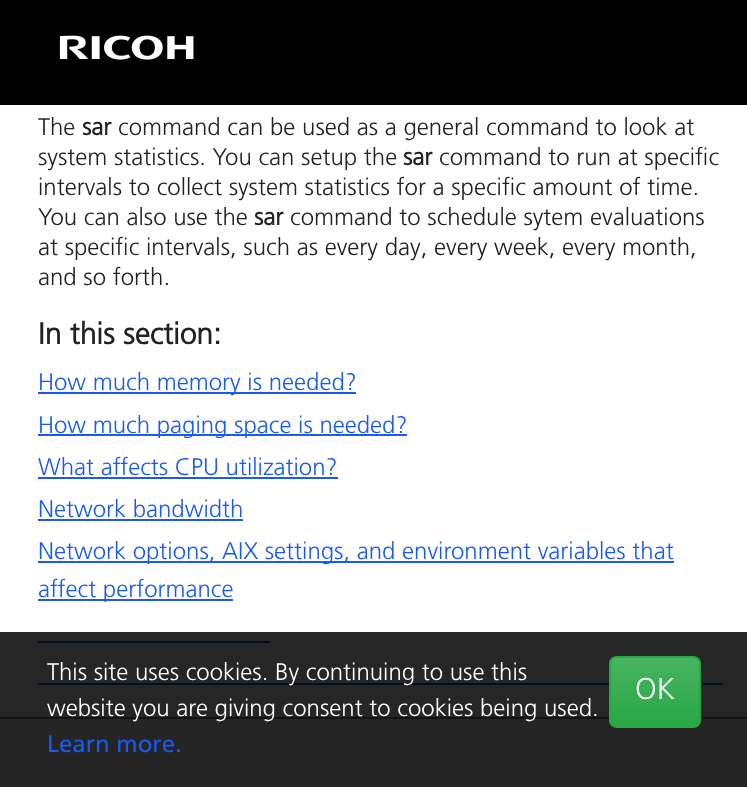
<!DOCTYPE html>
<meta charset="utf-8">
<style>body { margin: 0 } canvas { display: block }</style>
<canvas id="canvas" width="747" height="787"></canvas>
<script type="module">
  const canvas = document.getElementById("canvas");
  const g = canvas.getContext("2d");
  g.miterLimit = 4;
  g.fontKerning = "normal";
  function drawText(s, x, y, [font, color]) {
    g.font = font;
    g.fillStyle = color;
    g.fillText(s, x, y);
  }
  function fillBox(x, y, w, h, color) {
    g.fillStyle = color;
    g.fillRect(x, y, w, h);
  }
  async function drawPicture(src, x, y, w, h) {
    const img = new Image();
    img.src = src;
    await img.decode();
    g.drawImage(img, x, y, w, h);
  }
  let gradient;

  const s1 = ["300 24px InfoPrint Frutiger", "#222222"];
  const s2 = ["bold 24px InfoPrint Frutiger", "#222222"];
  const s3 = ["bold 30px InfoPrint Frutiger", "#222222"];
  const s4 = ["300 24px InfoPrint Frutiger", "#1A5AEF"];
  const s5 = ["300 24px InfoPrint Frutiger", "#FFFFFF"];
  const s6 = ["24px InfoPrint Frutiger", "#1A5AEF"];
  const s7 = ["300 30px InfoPrint Frutiger", "#FFFFFF"];

  fillBox(0, 0, 747, 787, "#FFFFFF");
  fillBox(0, 0, 747, 105, "#000000");
  await drawPicture("pic1.png", 59, 35, 135, 25);
  drawText("The", 38, 135, s1);
  drawText("sar", 82, 135, s2);
  drawText("command can be used as a general command to look at", 118, 135, s1);
  drawText("system statistics. You can setup the", 38, 165, s1);
  drawText("sar", 403, 165, s2);
  drawText("command to run at specific", 439, 165, s1);
  drawText("intervals to collect system statistics for a specific amount of time.", 38, 195, s1);
  drawText("You can also use the", 38, 225, s1);
  drawText("sar", 254, 225, s2);
  drawText("command to schedule sytem evaluations", 290, 225, s1);
  drawText("at specific intervals, such as every day, every week, every month,", 38, 255, s1);
  drawText("and so forth.", 38, 285, s1);
  drawText("In this section:", 38, 344, s3);
  fillBox(38, 392, 318, 2, "#1A5AEF");
  drawText("How much memory is needed?", 38, 390, s4);
  fillBox(38, 434, 369, 2, "#1A5AEF");
  drawText("How much paging space is needed?", 38, 433, s4);
  drawText("What affects CPU utilization?", 38, 475, s4);
  fillBox(38, 477, 300, 2, "#1A5AEF");
  drawText("Network bandwidth", 38, 517, s4);
  fillBox(38, 519, 205, 2, "#1A5AEF");
  fillBox(38, 561, 636, 2, "#1A5AEF");
  drawText("Network options, AIX settings, and environment variables that", 38, 559, s4);
  fillBox(38, 599, 195, 2, "#1A5AEF");
  drawText("affect performance", 38, 597, s4);
  fillBox(38, 641, 232, 2, "#1A5AEF");
  fillBox(38, 683, 685, 2, "#1A5AEF");
  fillBox(0, 719, 747, 68, "#F8F9FA");
  fillBox(0, 717, 747, 2, "#808080");
  fillBox(0, 632, 747, 155, "rgba(0, 0, 0, 0.85)");
  drawText("This site uses cookies. By continuing to use this", 47, 680, s5);
  drawText("website you are giving consent to cookies being used.", 47, 716, s5);
  drawText("Learn more.", 47, 752, s6);
  g.save();
  g.beginPath();
  g.roundRect(609, 656, 92, 72, 8);
  g.clip();
  gradient = g.createLinearGradient(655, 657, 655, 726);
  gradient.addColorStop(0, "#48B461");
  gradient.addColorStop(1, "#28A745");
  g.fillStyle = gradient;
  g.fillRect(609, 657, 92, 69);
  g.restore();
  g.beginPath();
  g.roundRect(610, 657, 90, 70, 7);
  g.strokeStyle = "#28A745";
  g.lineWidth = 2;
  g.stroke();
  drawText("OK", 635, 699, s7);
</script>
